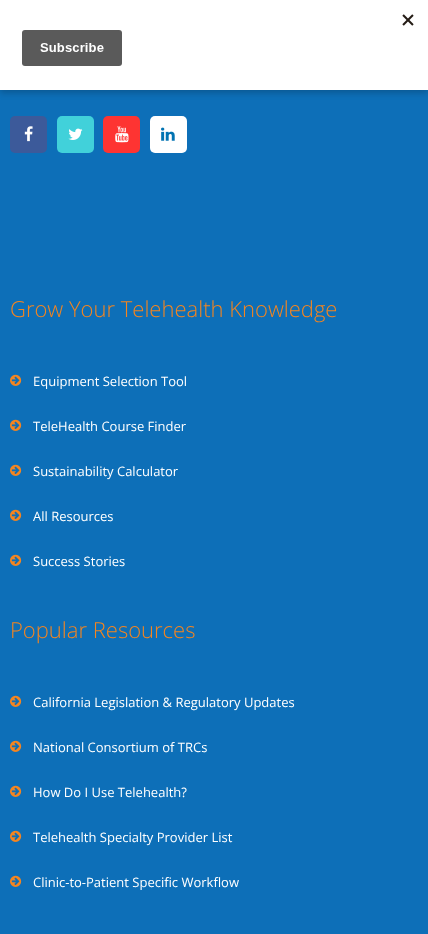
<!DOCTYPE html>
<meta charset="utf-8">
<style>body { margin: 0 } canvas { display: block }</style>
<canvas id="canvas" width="428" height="934"></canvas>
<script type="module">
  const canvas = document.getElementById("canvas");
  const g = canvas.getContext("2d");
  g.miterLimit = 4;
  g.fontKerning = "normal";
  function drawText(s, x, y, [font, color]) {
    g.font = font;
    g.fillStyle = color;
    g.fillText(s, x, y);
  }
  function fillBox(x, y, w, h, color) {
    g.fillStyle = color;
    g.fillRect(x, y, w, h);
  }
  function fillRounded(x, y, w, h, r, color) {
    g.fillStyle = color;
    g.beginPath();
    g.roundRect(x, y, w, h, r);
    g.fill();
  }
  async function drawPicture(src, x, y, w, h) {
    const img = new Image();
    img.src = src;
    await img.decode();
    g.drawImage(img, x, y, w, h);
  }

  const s1 = ["300 22px Open Sans", "#F5851F"];
  const s2 = ["13px Open Sans", "#FFFFFF"];

  fillBox(0, 0, 428, 934, "#0D6FB8");
  g.fillStyle = "rgba(0, 0, 0, 0.2)";
  g.filter = "blur(3px)";
  g.beginPath();
  g.rect(0, 3, 428, 90);
  g.fill();
  g.filter = "none";
  fillBox(0, 0, 428, 90, "#FFFFFF");
  await drawPicture("pic1.png", 22, 14, 392, 52);
  fillRounded(10, 116, 37, 37, 5, "#3C5A9A");
  await drawPicture("pic2.png", 24, 126, 9, 16);
  fillRounded(57, 116, 37, 37, 5, "#41D1DA");
  await drawPicture("pic3.png", 68, 128, 15, 12);
  fillRounded(103, 116, 37, 37, 5, "#FE3432");
  await drawPicture("pic4.png", 115, 126, 14, 17);
  fillRounded(150, 116, 37, 37, 5, "#FFFFFF");
  await drawPicture("pic5.png", 161, 127, 14, 14);
  drawText("Grow Your Telehealth Knowledge", 10, 317, s1);
  await drawPicture("pic6.png", 10, 374, 12, 12);
  drawText("Equipment Selection Tool", 33, 386, s2);
  await drawPicture("pic6.png", 10, 419, 12, 12);
  drawText("TeleHealth Course Finder", 33, 431, s2);
  await drawPicture("pic6.png", 10, 464, 12, 12);
  drawText("Sustainability Calculator", 33, 476, s2);
  await drawPicture("pic6.png", 10, 509, 12, 12);
  drawText("All Resources", 33, 521, s2);
  await drawPicture("pic6.png", 10, 554, 12, 12);
  drawText("Success Stories", 33, 566, s2);
  drawText("Popular Resources", 10, 638, s1);
  await drawPicture("pic6.png", 10, 695, 12, 12);
  drawText("California Legislation & Regulatory Updates", 33, 707, s2);
  await drawPicture("pic6.png", 10, 740, 12, 12);
  drawText("National Consortium of TRCs", 33, 752, s2);
  await drawPicture("pic6.png", 10, 785, 12, 12);
  drawText("How Do I Use Telehealth?", 33, 797, s2);
  await drawPicture("pic6.png", 10, 830, 12, 12);
  drawText("Telehealth Specialty Provider List", 33, 842, s2);
  await drawPicture("pic6.png", 10, 875, 12, 12);
  drawText("Clinic-to-Patient Specific Workflow", 33, 887, s2);
</script>
